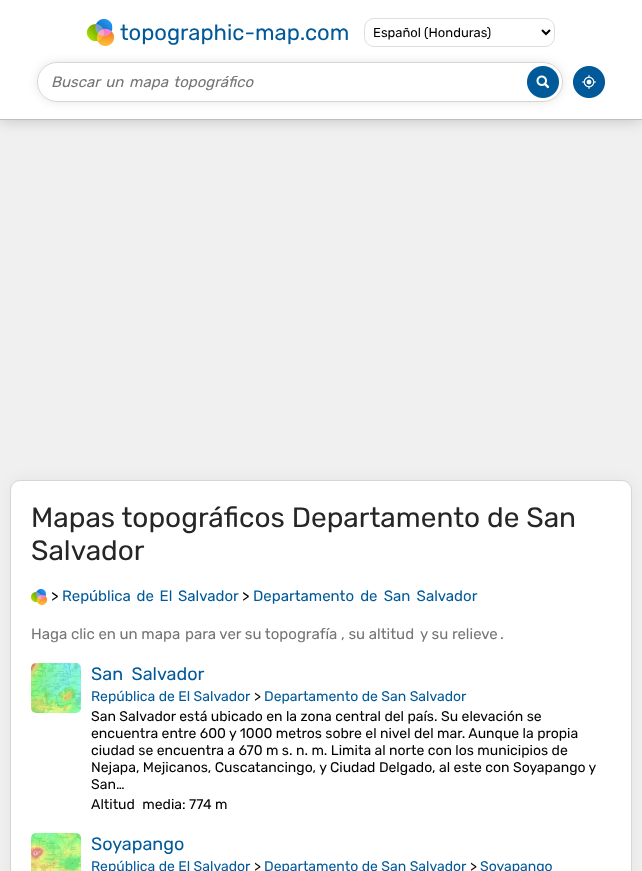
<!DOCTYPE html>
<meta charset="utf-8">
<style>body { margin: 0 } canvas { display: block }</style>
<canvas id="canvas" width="642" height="871"></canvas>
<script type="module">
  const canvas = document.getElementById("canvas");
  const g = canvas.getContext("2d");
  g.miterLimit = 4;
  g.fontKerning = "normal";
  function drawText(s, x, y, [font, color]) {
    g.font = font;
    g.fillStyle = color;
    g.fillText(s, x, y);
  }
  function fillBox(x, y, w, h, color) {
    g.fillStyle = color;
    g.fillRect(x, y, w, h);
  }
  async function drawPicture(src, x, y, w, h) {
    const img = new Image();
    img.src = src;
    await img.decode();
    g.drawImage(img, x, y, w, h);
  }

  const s1 = ["22px Rubik", "#005999"];
  const s2 = ["13px Rubik", "#000000"];
  const s3 = ["italic 15px Rubik", "#757575"];
  const s4 = ["28px Rubik", "#262626"];
  const s5 = ["15px Rubik", "#000000"];
  const s6 = ["15px Rubik", "#005999"];
  const s7 = ["15px Rubik", "#757575"];
  const s8 = ["18px Rubik", "#005999"];
  const s9 = ["14px Rubik", "#005999"];
  const s10 = ["14px Rubik", "#000000"];

  fillBox(0, 0, 642, 871, "#F0F0F0");
  g.fillStyle = "rgba(0, 0, 0, 0.2)";
  g.filter = "blur(7.5px)";
  g.beginPath();
  g.rect(0, 0, 642, 120);
  g.fill();
  g.filter = "none";
  fillBox(0, 0, 642, 119, "#FFFFFF");
  fillBox(0, 119, 642, 1, "#BFBFBF");
  await drawPicture("pic1.png", 87, 19, 27, 27);
  drawText("topographic-map.com", 120, 40, s1);
  g.beginPath();
  g.roundRect(364.5, 18.5, 190, 28, 9.5);
  g.strokeStyle = "#DEDEDE";
  g.stroke();
  g.beginPath();
  g.moveTo(542, 30);
  g.lineTo(546, 34);
  g.lineTo(550, 30);
  g.strokeStyle = "#000000";
  g.lineWidth = 2;
  g.stroke();
  drawText("Español (Honduras)", 373, 37, s2);
  g.save();
  g.beginPath();
  g.moveTo(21, 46);
  g.lineTo(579, 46);
  g.lineTo(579, 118);
  g.lineTo(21, 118);
  g.closePath();
  g.moveTo(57, 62);
  g.lineTo(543, 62);
  g.bezierCurveTo(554, 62, 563, 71, 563, 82);
  g.bezierCurveTo(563, 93, 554, 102, 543, 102);
  g.lineTo(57, 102);
  g.bezierCurveTo(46, 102, 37, 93, 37, 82);
  g.bezierCurveTo(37, 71, 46, 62, 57, 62);
  g.closePath();
  g.clip("evenodd");
  g.fillStyle = "rgba(0, 0, 0, 0.1)";
  g.filter = "blur(5px)";
  g.beginPath();
  g.roundRect(37, 62, 526, 40, 20);
  g.fill();
  g.filter = "none";
  g.restore();
  g.beginPath();
  g.roundRect(37.5, 62.5, 525, 39, 19.5);
  g.strokeStyle = "#D6D6D6";
  g.lineWidth = 1;
  g.stroke();
  g.wordSpacing = "2px";
  drawText("Buscar un mapa topográfico", 51, 87, s3);
  await drawPicture("pic2.png", 527, 66, 32, 32);
  await drawPicture("pic3.png", 573, 66, 32, 32);
  g.fillStyle = "rgba(0, 0, 0, 0.05)";
  g.filter = "blur(7.5px)";
  g.beginPath();
  g.roundRect(10, 480, 622, 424, 10);
  g.fill();
  g.filter = "none";
  g.fillStyle = "#FFFFFF";
  g.beginPath();
  g.roundRect(10.5, 480.5, 621, 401, 9.5);
  g.fill();
  g.stroke();
  g.wordSpacing = "0px";
  drawText("Mapas topográficos Departamento de San", 31, 527, s4);
  drawText("Salvador", 31, 560, s4);
  await drawPicture("pic4.png", 31, 589, 16, 16);
  drawText(">", 51, 601, s5);
  g.wordSpacing = "2px";
  drawText("República de El Salvador", 62, 601, s6);
  g.wordSpacing = "0px";
  drawText(">", 242, 601, s5);
  g.wordSpacing = "2.5px";
  drawText("Departamento de San Salvador", 253, 601, s6);
  g.wordSpacing = "0px";
  drawText("Haga clic en un mapa", 31, 639, s7);
  drawText("para ver su topografía , su altitud", 185, 639, s7);
  drawText("y su relieve", 420, 639, s7);
  drawText(".", 500, 639, s7);
  await drawPicture("pic5.png", 31, 663, 50, 50);
  g.wordSpacing = "4px";
  drawText("San Salvador", 91, 680, s8);
  g.wordSpacing = "0px";
  drawText("República de El Salvador", 91, 701, s9);
  drawText(">", 254, 701, s10);
  drawText("Departamento de San Salvador", 264, 701, s9);
  drawText("San Salvador está ubicado en la zona central del país. Su elevación se", 91, 721, s10);
  drawText("encuentra entre 600 y 1000 metros sobre el nivel del mar. Aunque la propia", 91, 738, s10);
  drawText("ciudad se encuentra a 670 m s. n. m. Limita al norte con los municipios de", 91, 755, s10);
  drawText("Nejapa, Mejicanos, Cuscatancingo, y Ciudad Delgado, al este con Soyapango y", 91, 772, s10);
  drawText("San…", 91, 789, s10);
  g.wordSpacing = "4px";
  drawText("Altitud media", 91, 809, s10);
  g.wordSpacing = "0px";
  drawText(": 774 m", 182, 809, s10);
  await drawPicture("pic6.png", 31, 833, 50, 38);
  drawText("Soyapango", 91, 850, s8);
  drawText("República de El Salvador", 91, 871, s9);
  drawText(">", 254, 871, s10);
  drawText("Departamento de San Salvador", 264, 871, s9);
  drawText(">", 470, 871, s10);
  drawText("Soyapango", 480, 871, s9);
</script>
